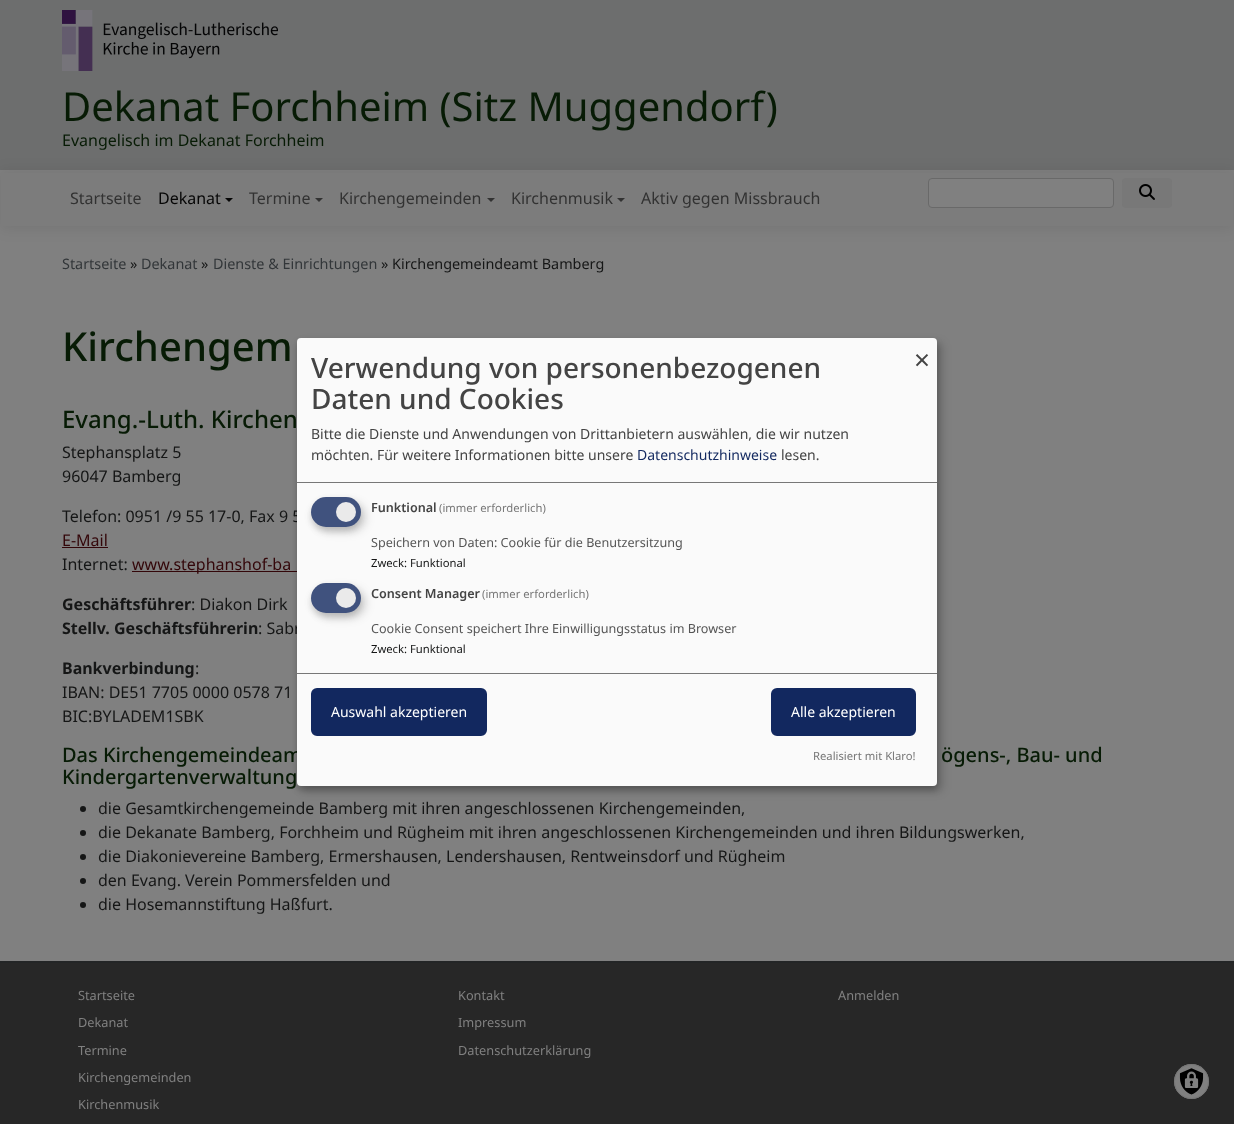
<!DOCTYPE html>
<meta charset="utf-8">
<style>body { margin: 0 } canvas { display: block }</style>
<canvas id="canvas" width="1234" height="1124"></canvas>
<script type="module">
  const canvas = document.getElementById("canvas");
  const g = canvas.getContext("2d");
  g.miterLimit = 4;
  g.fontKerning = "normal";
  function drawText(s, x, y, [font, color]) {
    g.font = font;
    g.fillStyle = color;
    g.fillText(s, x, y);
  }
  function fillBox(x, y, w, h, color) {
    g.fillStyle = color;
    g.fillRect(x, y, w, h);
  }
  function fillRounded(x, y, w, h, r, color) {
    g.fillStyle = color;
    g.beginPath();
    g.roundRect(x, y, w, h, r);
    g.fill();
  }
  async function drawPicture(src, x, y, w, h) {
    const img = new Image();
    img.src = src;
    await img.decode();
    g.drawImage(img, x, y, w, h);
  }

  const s1 = ["40px Noto Sans", "#071B05"];
  const s2 = ["16px Noto Sans", "#071B05"];
  const s3 = ["16px Noto Sans", "#323232"];
  const s4 = ["16px Noto Sans", "#060606"];
  const s5 = ["14.4px Noto Sans", "#323639"];
  const s6 = ["14.4px Noto Sans", "#151616"];
  const s7 = ["500 40px Noto Sans", "#071B05"];
  const s8 = ["500 24px Noto Sans", "#071B05"];
  const s9 = ["16px Noto Sans", "#151616"];
  const s10 = ["16px Noto Sans", "#330609"];
  const s11 = ["bold 16px Noto Sans", "#151616"];
  const s12 = ["500 20px Noto Sans", "#071B05"];
  const s13 = ["12.75px Noto Sans", "#808080"];
  const s14 = ["500 28px Noto Sans", "#444444"];
  const s15 = ["14px Noto Sans", "#444444"];
  const s16 = ["14px Noto Sans", "#12285F"];
  const s17 = ["28px Noto Sans", "#444444"];
  const s18 = ["600 12.6px Noto Sans", "#444444"];
  const s19 = ["11.25px Noto Sans", "#777777"];
  const s20 = ["12.6px Noto Sans", "#555555"];
  const s21 = ["11.25px Noto Sans", "#151616"];
  const s22 = ["14px Noto Sans", "#FFFFFF"];

  fillBox(0, 0, 1234, 1124, "#808080");
  fillBox(0, 0, 1234, 170, "#6D6E6E");
  await drawPicture("pic1.png", 62, 10, 216, 61);
  drawText("Dekanat Forchheim (Sitz Muggendorf)", 62, 121, s1);
  drawText("Evangelisch im Dekanat Forchheim", 62, 146, s2);
  g.fillStyle = "rgba(0, 0, 0, 0.09)";
  g.filter = "blur(7.5px)";
  g.beginPath();
  g.rect(0, 172, 1234, 56);
  g.fill();
  g.filter = "none";
  fillBox(1, 173, 1232, 53, "#7C7C7C");
  drawText("Startseite", 70, 204, s3);
  drawText("Dekanat", 158, 204, s4);
  g.beginPath();
  g.moveTo(225, 198);
  g.lineTo(233, 198);
  g.lineTo(229, 202);
  g.closePath();
  g.fill();
  drawText("Termine", 249, 204, s3);
  g.beginPath();
  g.moveTo(315, 198);
  g.lineTo(323, 198);
  g.lineTo(319, 202);
  g.closePath();
  g.fill();
  drawText("Kirchengemeinden", 339, 204, s3);
  g.beginPath();
  g.moveTo(487, 198);
  g.lineTo(495, 198);
  g.lineTo(491, 202);
  g.closePath();
  g.fill();
  drawText("Kirchenmusik", 511, 204, s3);
  g.beginPath();
  g.moveTo(617, 198);
  g.lineTo(625, 198);
  g.lineTo(621, 202);
  g.closePath();
  g.fill();
  drawText("Aktiv gegen Missbrauch", 641, 204, s3);
  g.fillStyle = "#808080";
  g.beginPath();
  g.roundRect(928.5, 178.5, 185, 29, 3.5);
  g.fill();
  g.strokeStyle = "#696969";
  g.stroke();
  fillRounded(1122, 178, 50, 30, 4, "#787878");
  await drawPicture("pic2.png", 1139, 184, 16, 16);
  drawText("Startseite", 62, 269, s5);
  drawText("»", 130, 269, s6);
  drawText("Dekanat", 141, 269, s5);
  drawText("»", 201, 269, s6);
  drawText("Dienste & Einrichtungen", 213, 269, s5);
  drawText("» Kirchengemeindeamt Bamberg", 381, 269, s6);
  drawText("Kirchengem", 62, 361, s7);
  drawText("Evang.-Luth. Kirchen", 62, 428, s8);
  drawText("Stephansplatz 5", 62, 458, s9);
  drawText("96047 Bamberg", 62, 482, s9);
  drawText("Telefon: 0951 /9 55 17-0, Fax 9 5", 62, 522, s9);
  drawText("E-Mail", 62, 546, s10);
  fillBox(62, 547, 46, 1, "#330609");
  drawText("Internet:", 62, 570, s9);
  fillBox(132, 571, 165, 1, "#330609");
  drawText("www.stephanshof-ba", 132, 570, s10);
  drawText("Geschäftsführer", 62, 610, s11);
  drawText(": Diakon Dirk", 191, 610, s9);
  drawText("Stellv. Geschäftsführerin", 62, 634, s11);
  drawText(": Sabr", 258, 634, s9);
  drawText("Bankverbindung", 62, 674, s11);
  drawText(":", 195, 674, s9);
  drawText("IBAN: DE51 7705 0000 0578 71", 62, 698, s9);
  drawText("BIC:BYLADEM1SBK", 62, 722, s9);
  drawText("Das Kirchengemeindeam", 62, 762, s12);
  drawText("ögens-, Bau- und", 941, 762, s12);
  drawText("Kindergartenverwaltung", 62, 784, s12);
  g.fillStyle = "#151616";
  g.beginPath();
  g.arc(83, 809, 3, 0, Math.PI * 2);
  g.fill();
  drawText("die Gesamtkirchengemeinde Bamberg mit ihren angeschlossenen Kirchengemeinden,", 98, 814, s9);
  g.beginPath();
  g.arc(83, 833, 3, 0, Math.PI * 2);
  g.fill();
  drawText("die Dekanate Bamberg, Forchheim und Rügheim mit ihren angeschlossenen Kirchengemeinden und ihren Bildungswerken,", 98, 838, s9);
  g.beginPath();
  g.arc(83, 857, 3, 0, Math.PI * 2);
  g.fill();
  drawText("die Diakonievereine Bamberg, Ermershausen, Lendershausen, Rentweinsdorf und Rügheim", 98, 862, s9);
  g.beginPath();
  g.arc(83, 881, 3, 0, Math.PI * 2);
  g.fill();
  drawText("den Evang. Verein Pommersfelden und", 98, 886, s9);
  g.beginPath();
  g.arc(83, 905, 3, 0, Math.PI * 2);
  g.fill();
  drawText("die Hosemannstiftung Haßfurt.", 98, 910, s9);
  fillBox(0, 963, 1234, 161, "#272727");
  fillBox(0, 961, 1234, 2, "#232526");
  drawText("Startseite", 78, 1000, s13);
  drawText("Dekanat", 78, 1027, s13);
  drawText("Termine", 78, 1055, s13);
  drawText("Kirchengemeinden", 78, 1082, s13);
  drawText("Kirchenmusik", 78, 1109, s13);
  drawText("Kontakt", 458, 1000, s13);
  drawText("Impressum", 458, 1027, s13);
  drawText("Datenschutzerklärung", 458, 1055, s13);
  drawText("Anmelden", 838, 1000, s13);
  g.fillStyle = "rgba(0, 0, 0, 0.19)";
  g.filter = "blur(5px)";
  g.beginPath();
  g.roundRect(302, 343, 640, 448, 4);
  g.fill();
  g.filter = "none";
  g.fillStyle = "rgba(0, 0, 0, 0.2)";
  g.filter = "blur(3px)";
  g.beginPath();
  g.roundRect(297, 342, 640, 448, 4);
  g.fill();
  g.filter = "none";
  fillRounded(297, 338, 640, 448, 4, "#FAFAFA");
  fillBox(297, 482, 640, 1, "#777777");
  drawText("Verwendung von personenbezogenen", 311, 378, s14);
  drawText("Daten und Cookies", 311, 409, s14);
  drawText("Bitte die Dienste und Anwendungen von Drittanbietern auswählen, die wir nutzen", 311, 439, s15);
  drawText("möchten. Für weitere Informationen bitte unsere", 311, 460, s15);
  drawText("Datenschutzhinweise", 637, 460, s16);
  drawText("lesen.", 781, 460, s15);
  drawText("×", 914, 370, s17);
  g.fillStyle = "rgba(0, 0, 0, 0.15)";
  g.filter = "blur(5px)";
  g.beginPath();
  g.roundRect(316, 502, 50, 30, 15);
  g.fill();
  g.filter = "none";
  g.fillStyle = "rgba(50, 50, 50, 0.2)";
  g.filter = "blur(3px)";
  g.beginPath();
  g.roundRect(311, 501, 50, 30, 15);
  g.fill();
  g.filter = "none";
  fillRounded(311, 497, 50, 30, 15, "#40527E");
  g.fillStyle = "#EAEAEA";
  g.beginPath();
  g.arc(346, 512, 10, 0, Math.PI * 2);
  g.fill();
  drawText("Funktional", 371, 512, s18);
  drawText("(immer erforderlich)", 439, 512, s19);
  drawText("Speichern von Daten: Cookie für die Benutzersitzung", 371, 547, s20);
  drawText("Zweck: Funktional", 371, 567, s21);
  g.fillStyle = "rgba(0, 0, 0, 0.15)";
  g.filter = "blur(5px)";
  g.beginPath();
  g.roundRect(316, 588, 50, 30, 15);
  g.fill();
  g.filter = "none";
  g.fillStyle = "rgba(50, 50, 50, 0.2)";
  g.filter = "blur(3px)";
  g.beginPath();
  g.roundRect(311, 587, 50, 30, 15);
  g.fill();
  g.filter = "none";
  fillRounded(311, 583, 50, 30, 15, "#40527E");
  g.fillStyle = "#EAEAEA";
  g.beginPath();
  g.arc(346, 598, 10, 0, Math.PI * 2);
  g.fill();
  drawText("Consent Manager", 371, 598, s18);
  drawText("(immer erforderlich)", 482, 598, s19);
  drawText("Cookie Consent speichert Ihre Einwilligungsstatus im Browser", 371, 633, s20);
  drawText("Zweck: Funktional", 371, 653, s21);
  fillBox(297, 673, 640, 1, "#777777");
  g.fillStyle = "#12285F";
  g.beginPath();
  g.roundRect(312.5, 689.5, 173, 45, 4.5);
  g.fill();
  g.strokeStyle = "#12285F";
  g.lineWidth = 3;
  g.stroke();
  drawText("Auswahl akzeptieren", 331, 717, s22);
  g.fillStyle = "#12285F";
  g.beginPath();
  g.roundRect(772.5, 689.5, 142, 45, 4.5);
  g.fill();
  g.stroke();
  drawText("Alle akzeptieren", 791, 717, s22);
  drawText("Realisiert mit Klaro!", 813, 760, s19);
  g.fillStyle = "#808080";
  g.beginPath();
  g.arc(1191.5, 1081.5, 17.5, 0, Math.PI * 2);
  g.fill();
  await drawPicture("pic3.png", 1179, 1068, 25, 27);
  g.beginPath();
  g.arc(1191.5, 1081.5, 17, 0, Math.PI * 2);
  g.strokeStyle = "#757575";
  g.lineWidth = 1;
  g.stroke();
</script>
